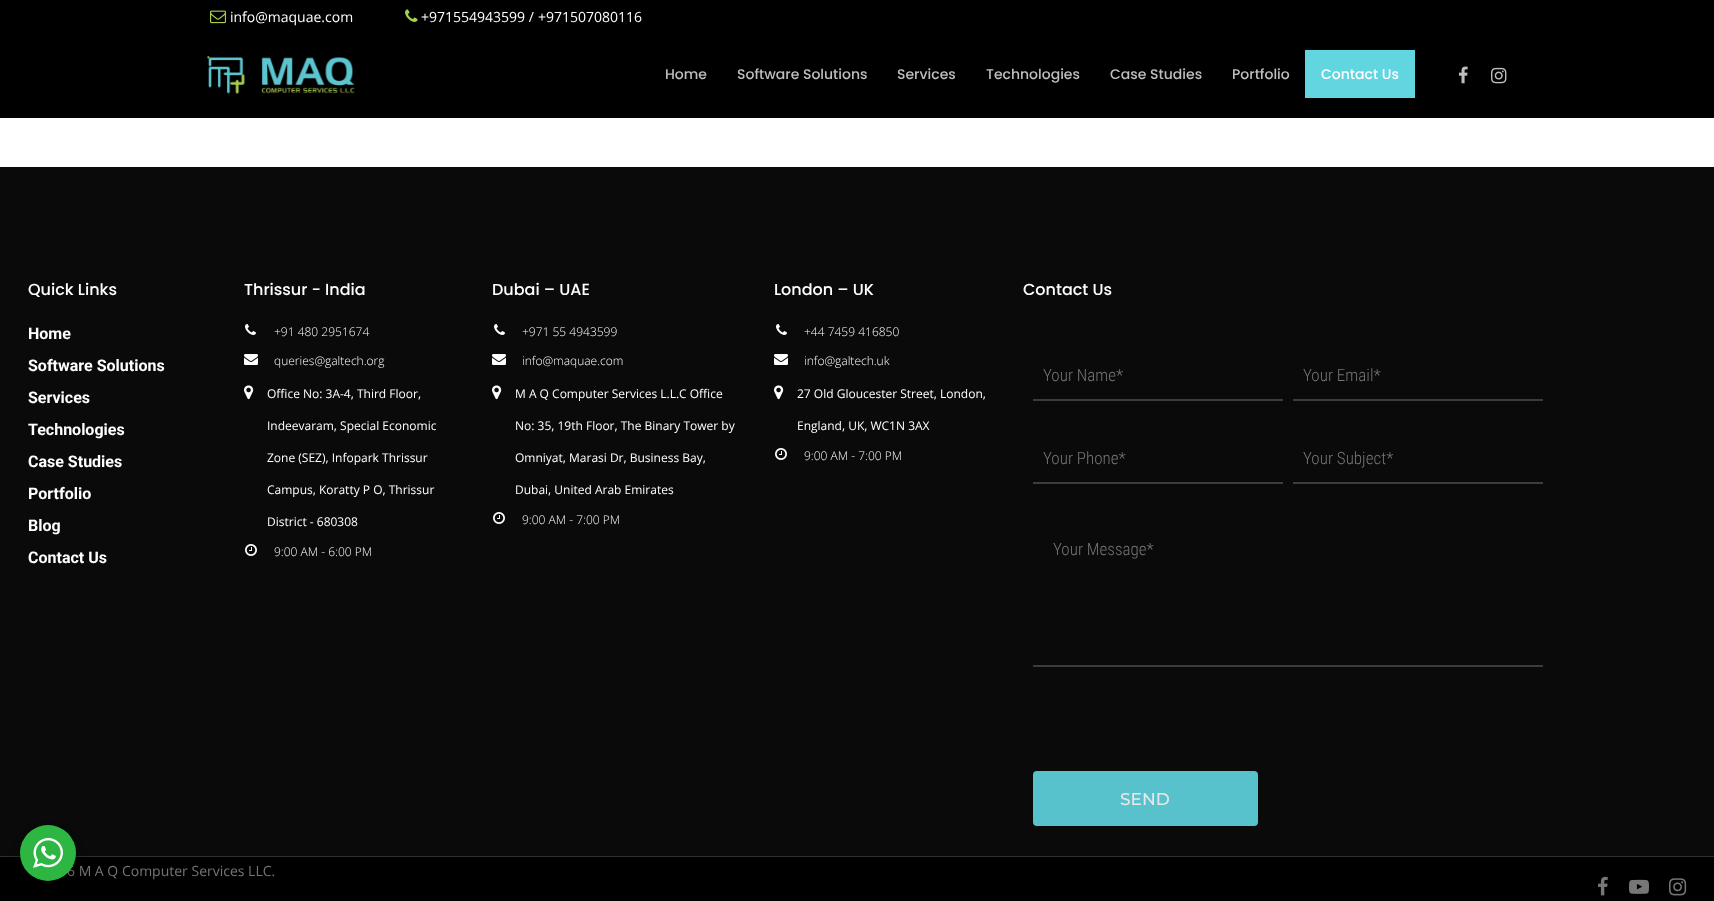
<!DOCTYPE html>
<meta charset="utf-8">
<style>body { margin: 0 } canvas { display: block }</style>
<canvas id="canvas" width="1714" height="901"></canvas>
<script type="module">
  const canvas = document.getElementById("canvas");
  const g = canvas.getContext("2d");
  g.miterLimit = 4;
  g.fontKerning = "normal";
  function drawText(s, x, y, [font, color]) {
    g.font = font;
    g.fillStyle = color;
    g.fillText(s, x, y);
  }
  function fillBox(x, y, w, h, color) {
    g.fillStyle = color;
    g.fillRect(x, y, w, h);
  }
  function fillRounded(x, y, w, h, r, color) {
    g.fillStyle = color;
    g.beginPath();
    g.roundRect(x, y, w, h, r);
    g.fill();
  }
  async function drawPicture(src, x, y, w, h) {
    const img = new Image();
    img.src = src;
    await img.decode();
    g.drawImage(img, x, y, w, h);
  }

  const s1 = ["14px Open Sans", "#FFFFFF"];
  const s2 = ["500 14px Poppins", "#BFBFBF"];
  const s3 = ["500 14px Poppins", "#FFFFFF"];
  const s4 = ["500 16px Poppins", "#FFFFFF"];
  const s5 = ["bold 16px Roboto", "#FFFFFF"];
  const s6 = ["300 12px Open Sans", "#FFFFFF"];
  const s7 = ["12px Open Sans", "#FFFFFF"];
  const s8 = ["300 17px Roboto Condensed", "#757575"];
  const s9 = ["100 17px Montserrat", "#E7E7E7"];
  const s10 = ["14px Open Sans", "#757575"];

  fillBox(0, 0, 1714, 901, "#FFFFFF");
  fillBox(0, 0, 1714, 118, "#000000");
  await drawPicture("pic1.png", 210, 10, 16, 14);
  drawText("info@maquae.com", 230, 22, s1);
  await drawPicture("pic2.png", 405, 9, 13, 13);
  drawText("+971554943599 /", 421, 22, s1);
  drawText("+971507080116", 538, 22, s1);
  await drawPicture("pic3.png", 207, 55, 148, 39);
  drawText("Home", 665, 79, s2);
  drawText("Software Solutions", 737, 79, s2);
  drawText("Services", 897, 79, s2);
  drawText("Technologies", 986, 79, s2);
  drawText("Case Studies", 1110, 79, s2);
  drawText("Portfolio", 1232, 79, s2);
  fillBox(1305, 50, 110, 48, "#61D6E1");
  drawText("Contact Us", 1321, 79, s3);
  await drawPicture("pic4.png", 1458, 66, 10, 18);
  await drawPicture("pic5.png", 1491, 67, 16, 17);
  fillBox(0, 167, 1714, 689, "#0A0A0A");
  drawText("Quick Links", 28, 295, s4);
  drawText("Home", 28, 339, s5);
  drawText("Software Solutions", 28, 371, s5);
  drawText("Services", 28, 403, s5);
  drawText("Technologies", 28, 435, s5);
  drawText("Case Studies", 28, 467, s5);
  drawText("Portfolio", 28, 499, s5);
  drawText("Blog", 28, 531, s5);
  drawText("Contact Us", 28, 563, s5);
  drawText("Thrissur - India", 244, 295, s4);
  await drawPicture("pic6.png", 245, 324, 11, 11);
  drawText("+91 480 2951674", 274, 336, s6);
  await drawPicture("pic7.png", 244, 354, 14, 11);
  drawText("queries@galtech.org", 274, 365, s6);
  await drawPicture("pic8.png", 244, 385, 10, 15);
  drawText("Office No: 3A-4, Third Floor,", 267, 398, s7);
  drawText("Indeevaram, Special Economic", 267, 430, s7);
  drawText("Zone (SEZ), Infopark Thrissur", 267, 462, s7);
  drawText("Campus, Koratty P O, Thrissur", 267, 494, s7);
  drawText("District - 680308", 267, 526, s7);
  await drawPicture("pic9.png", 245, 544, 12, 12);
  drawText("9:00 AM - 6:00 PM", 274, 556, s6);
  drawText("Dubai – UAE", 492, 295, s4);
  await drawPicture("pic6.png", 494, 324, 11, 11);
  drawText("+971 55 4943599", 522, 336, s6);
  await drawPicture("pic7.png", 492, 354, 14, 11);
  drawText("info@maquae.com", 522, 365, s6);
  await drawPicture("pic8.png", 492, 385, 10, 15);
  drawText("M A Q Computer Services L.L.C Office", 515, 398, s7);
  drawText("No: 35, 19th Floor, The Binary Tower by", 515, 430, s7);
  drawText("Omniyat, Marasi Dr, Business Bay,", 515, 462, s7);
  drawText("Dubai, United Arab Emirates", 515, 494, s7);
  await drawPicture("pic9.png", 493, 512, 12, 12);
  drawText("9:00 AM - 7:00 PM", 522, 524, s6);
  drawText("London – UK", 774, 295, s4);
  await drawPicture("pic6.png", 776, 324, 11, 11);
  drawText("+44 7459 416850", 804, 336, s6);
  await drawPicture("pic7.png", 774, 354, 14, 11);
  drawText("info@galtech.uk", 804, 365, s6);
  await drawPicture("pic8.png", 774, 385, 10, 15);
  drawText("27 Old Gloucester Street, London,", 797, 398, s7);
  drawText("England, UK, WC1N 3AX", 797, 430, s7);
  await drawPicture("pic9.png", 775, 448, 12, 12);
  drawText("9:00 AM - 7:00 PM", 804, 460, s6);
  drawText("Contact Us", 1023, 295, s4);
  fillBox(1033, 399, 250, 2, "#3C3C3C");
  drawText("Your Name*", 1043, 381, s8);
  fillBox(1293, 399, 250, 2, "#3C3C3C");
  drawText("Your Email*", 1303, 381, s8);
  fillBox(1033, 482, 250, 2, "#3C3C3C");
  drawText("Your Phone*", 1043, 464, s8);
  fillBox(1293, 482, 250, 2, "#3C3C3C");
  drawText("Your Subject*", 1303, 464, s8);
  fillBox(1033, 665, 510, 2, "#3C3C3C");
  drawText("Your Message*", 1053, 555, s8);
  fillRounded(1033, 771, 225, 55, 4, "#58C2CC");
  drawText("SEND", 1120, 805, s9);
  fillBox(0, 857, 1714, 44, "#000000");
  fillBox(0, 856, 1714, 1, "#2E2E2E");
  drawText("6 M A Q Computer Services LLC.", 67, 876, s10);
  await drawPicture("pic10.png", 1598, 876, 10, 20);
  await drawPicture("pic11.png", 1629, 879, 20, 15);
  await drawPicture("pic12.png", 1669, 878, 18, 18);
  g.fillStyle = "rgba(0, 0, 0, 0.14)";
  g.filter = "blur(4px)";
  g.beginPath();
  g.roundRect(18, 829, 60, 60, 30);
  g.fill();
  g.filter = "none";
  g.fillStyle = "#2DB742";
  g.beginPath();
  g.arc(48, 853, 28, 0, Math.PI * 2);
  g.fill();
  await drawPicture("pic13.png", 33, 838, 30, 30);
</script>
